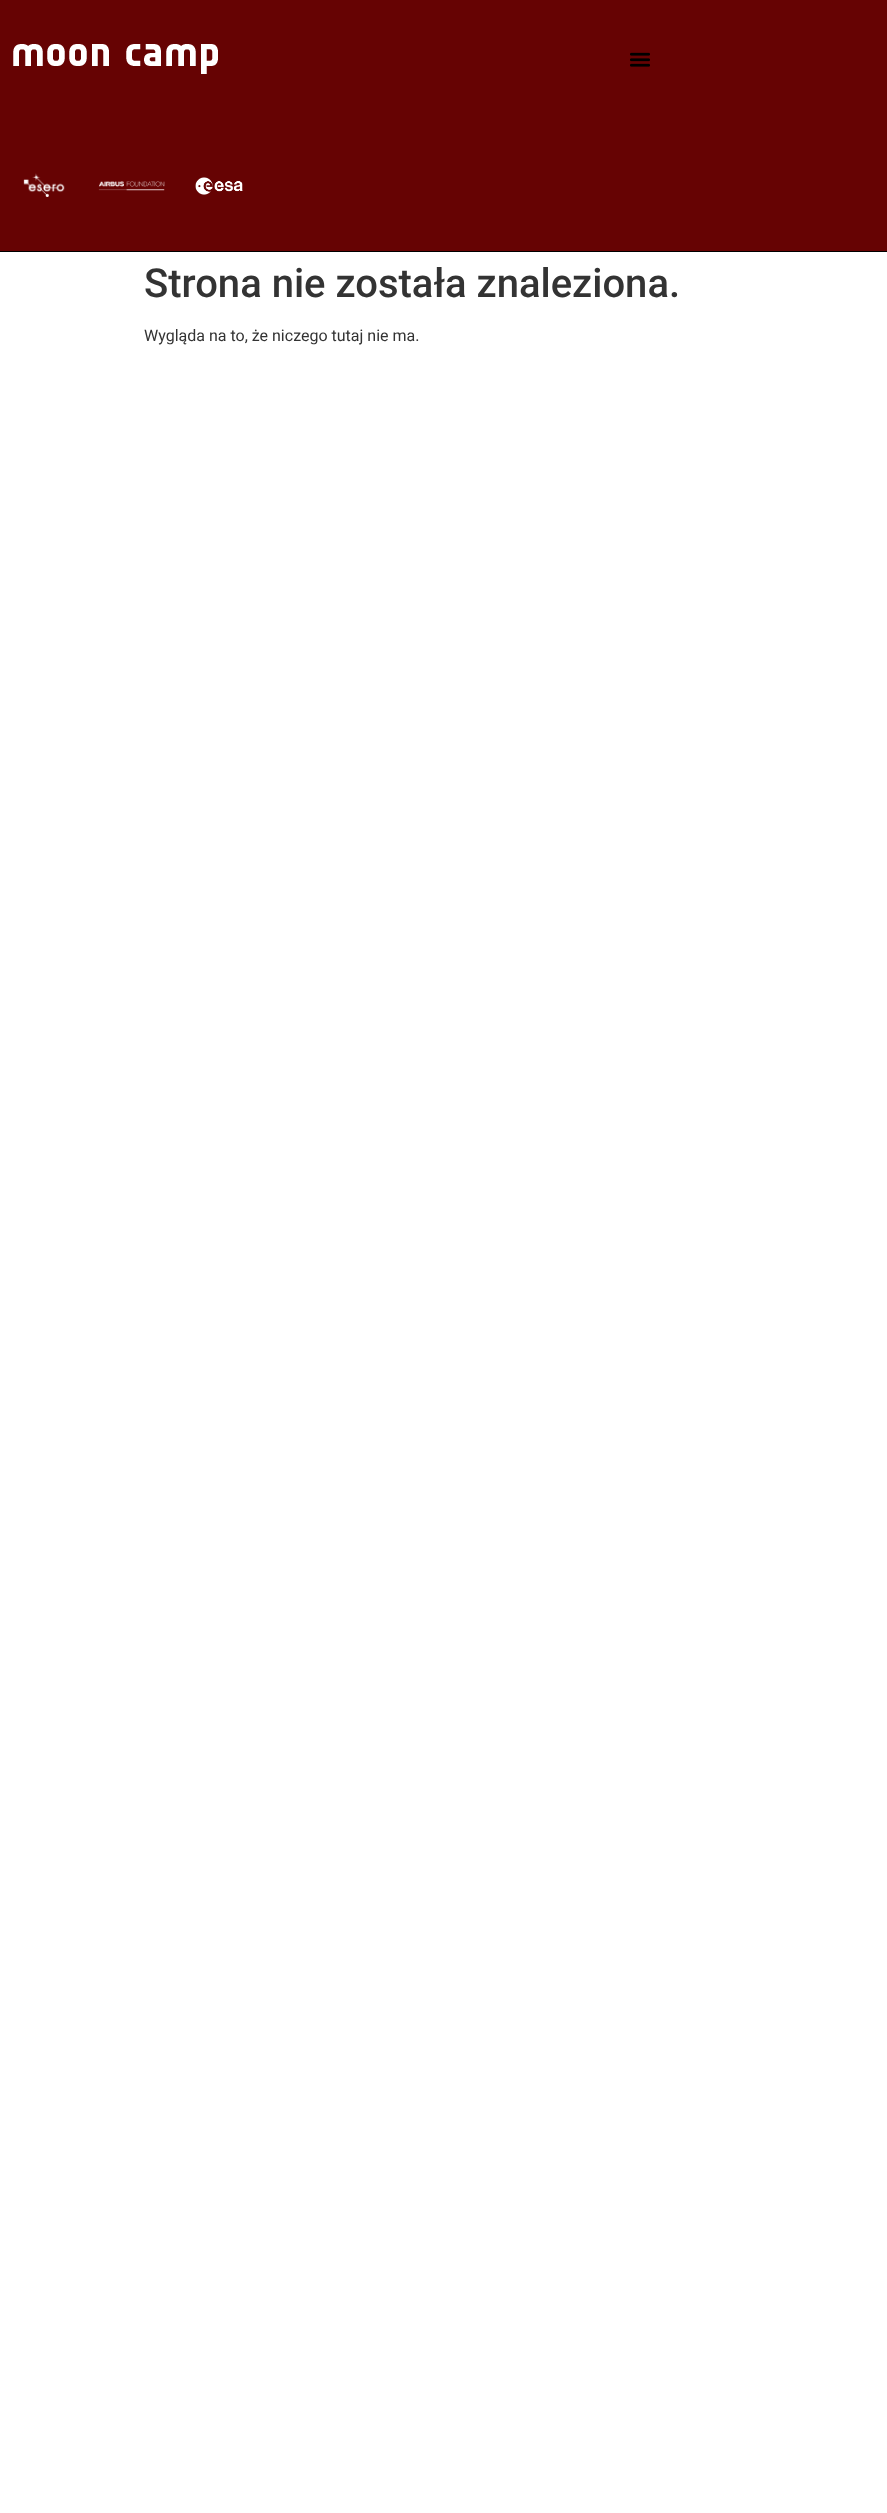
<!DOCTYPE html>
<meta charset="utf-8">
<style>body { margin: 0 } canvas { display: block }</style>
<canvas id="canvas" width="887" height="2513"></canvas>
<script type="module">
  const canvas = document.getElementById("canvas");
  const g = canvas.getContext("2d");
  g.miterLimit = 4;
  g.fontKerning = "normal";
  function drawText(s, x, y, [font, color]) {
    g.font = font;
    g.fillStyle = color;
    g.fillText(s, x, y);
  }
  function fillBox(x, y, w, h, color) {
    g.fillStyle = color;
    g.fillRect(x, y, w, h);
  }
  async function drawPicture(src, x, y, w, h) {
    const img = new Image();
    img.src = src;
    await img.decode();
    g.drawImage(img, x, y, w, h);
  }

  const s1 = ["500 40px Roboto", "#333333"];
  const s2 = ["16px Roboto", "#333333"];

  fillBox(0, 0, 887, 2513, "#FFFFFF");
  fillBox(0, 0, 887, 251, "#660303");
  fillBox(0, 251, 887, 1, "#000000");
  await drawPicture("pic1.png", 13, 44, 205, 30);
  await drawPicture("pic2.png", 630, 52, 20, 15);
  await drawPicture("pic3.png", 23, 173, 42, 24);
  await drawPicture("pic4.png", 98, 181, 67, 10);
  await drawPicture("pic5.png", 195, 177, 48, 18);
  drawText("Strona nie została znaleziona.", 144, 297, s1);
  drawText("Wygląda na to, że niczego tutaj nie ma.", 144, 341, s2);
</script>
